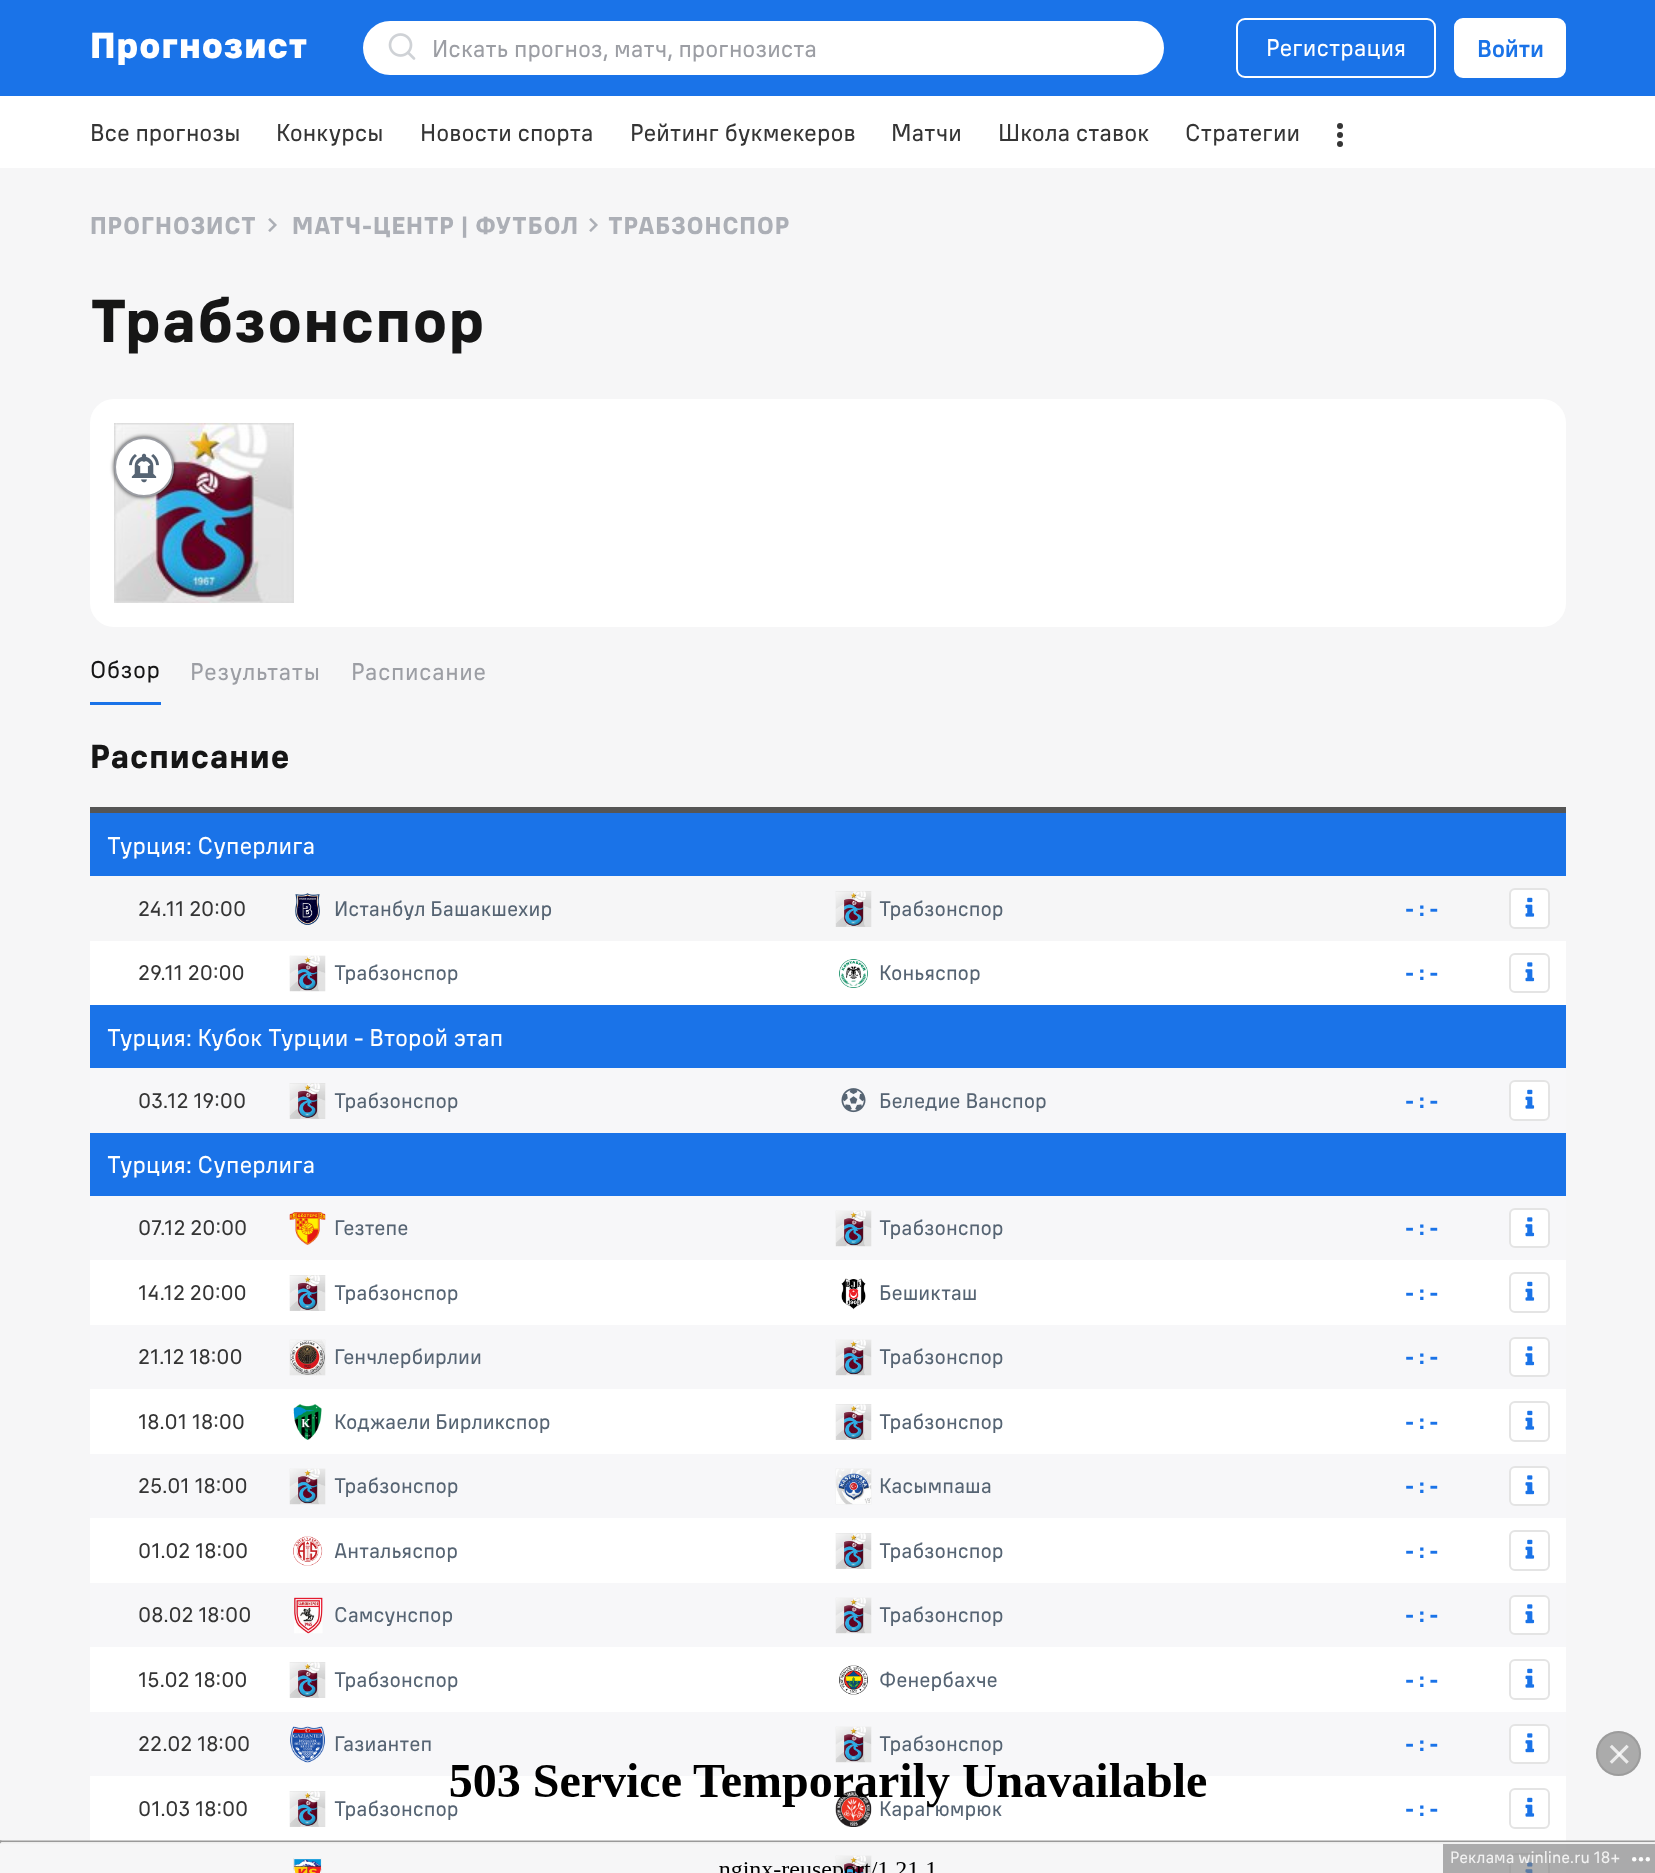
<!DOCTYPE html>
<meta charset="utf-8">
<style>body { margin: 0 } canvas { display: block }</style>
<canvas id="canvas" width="1655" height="1873"></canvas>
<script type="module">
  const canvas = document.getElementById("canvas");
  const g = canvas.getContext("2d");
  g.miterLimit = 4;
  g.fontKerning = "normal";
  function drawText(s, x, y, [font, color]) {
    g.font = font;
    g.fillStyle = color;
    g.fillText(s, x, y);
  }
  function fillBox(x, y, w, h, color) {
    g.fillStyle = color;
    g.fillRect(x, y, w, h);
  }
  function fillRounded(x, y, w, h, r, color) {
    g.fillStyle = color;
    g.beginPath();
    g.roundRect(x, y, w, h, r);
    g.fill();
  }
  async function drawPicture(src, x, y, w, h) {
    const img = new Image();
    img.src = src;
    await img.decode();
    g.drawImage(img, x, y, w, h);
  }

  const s1 = ["900 36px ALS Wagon", "#FFFFFF"];
  const s2 = ["24px ALS Wagon", "#9C9EA4"];
  const s3 = ["24px ALS Wagon", "#FFFFFF"];
  const s4 = ["500 24px ALS Wagon", "#1A73E8"];
  const s5 = ["24px ALS Wagon", "#353535"];
  const s6 = ["bold 24px ALS Wagon", "#ACAFB6"];
  const s7 = ["bold 60px ALS Wagon", "#161616"];
  const s8 = ["24px ALS Wagon", "#161616"];
  const s9 = ["bold 33px ALS Wagon", "#161616"];
  const s10 = ["21px ALS Wagon", "#353535"];
  const s11 = ["21px ALS Wagon", "#566473"];
  const s12 = ["bold 21px ALS Wagon", "#1A73E8"];
  const s13 = ["16.5px ALS Wagon", "#F2F2F2"];

  fillBox(0, 0, 1655, 1873, "#F6F6F7");
  fillBox(1566, 1844, 89, 29, "#AAAAAB");
  fillBox(0, 0, 1655, 96, "#1A73E8");
  g.letterSpacing = "1px";
  drawText("Прогнозист", 90, 58, s1);
  fillRounded(363, 21, 801, 54, 27, "#FFFFFF");
  await drawPicture("pic1.png", 388, 33, 28, 27);
  g.letterSpacing = "0px";
  drawText("Искать прогноз, матч, прогнозиста", 432, 57, s2);
  g.beginPath();
  g.roundRect(1237, 19, 198, 58, 8);
  g.strokeStyle = "#FFFFFF";
  g.lineWidth = 2;
  g.stroke();
  drawText("Регистрация", 1266, 56, s3);
  g.beginPath();
  g.roundRect(1455, 19, 110, 58, 8);
  g.fill();
  g.stroke();
  g.letterSpacing = "-0.25px";
  drawText("Войти", 1477, 57, s4);
  fillBox(0, 96, 1655, 72, "#FFFFFF");
  g.letterSpacing = "0px";
  drawText("Все прогнозы", 90, 141, s5);
  drawText("Конкурсы", 276, 141, s5);
  drawText("Новости спорта", 420, 141, s5);
  drawText("Рейтинг букмекеров", 630, 141, s5);
  drawText("Матчи", 891, 141, s5);
  drawText("Школа ставок", 998, 141, s5);
  drawText("Стратегии", 1185, 141, s5);
  g.beginPath();
  g.arc(1340, 135, 3, 0, Math.PI * 2);
  g.fill();
  g.beginPath();
  g.arc(1340, 126, 3, 0, Math.PI * 2);
  g.fill();
  g.beginPath();
  g.arc(1340, 144, 3, 0, Math.PI * 2);
  g.fill();
  g.letterSpacing = "0.75px";
  drawText("ПРОГНОЗИСТ", 90, 234, s6);
  await drawPicture("pic2.png", 268, 218, 9, 14);
  drawText("МАТЧ-ЦЕНТР | ФУТБОЛ", 292, 234, s6);
  await drawPicture("pic2.png", 589, 218, 9, 14);
  drawText("ТРАБЗОНСПОР", 608, 234, s6);
  g.letterSpacing = "1.6px";
  drawText("Трабзонспор", 90, 342, s7);
  fillRounded(90, 399, 1476, 228, 24, "#FFFFFF");
  await drawPicture("pic3.png", 114, 423, 180, 180);
  g.fillStyle = "rgba(0, 0, 0, 0.8)";
  g.filter = "blur(2px)";
  g.beginPath();
  g.roundRect(114, 437, 60, 60, 30);
  g.fill();
  g.filter = "none";
  g.fillStyle = "#FFFFFF";
  g.beginPath();
  g.arc(144, 467, 29, 0, Math.PI * 2);
  g.fill();
  g.strokeStyle = "#9C9EA4";
  g.stroke();
  await drawPicture("pic4.png", 129, 453, 30, 30);
  fillBox(90, 702, 71, 3, "#1A73E8");
  g.letterSpacing = "0.5px";
  drawText("Обзор", 90, 678, s8);
  drawText("Результаты", 190, 680, s2);
  drawText("Расписание", 351, 680, s2);
  g.letterSpacing = "1px";
  drawText("Расписание", 90, 768, s9);
  fillBox(90, 807, 1476, 6, "#555555");
  fillBox(90, 941, 1476, 900, "#FFFFFF");
  fillBox(90, 813, 1476, 63, "#1A73E8");
  g.letterSpacing = "0px";
  drawText("Турция: Суперлига", 107, 854, s3);
  drawText("24.11 20:00", 138, 916, s10);
  await drawPicture("pic5.png", 295, 893, 25, 32);
  drawText("Истанбул Башакшехир", 334, 916, s11);
  await drawPicture("pic6.png", 835, 891, 37, 36);
  drawText("Трабзонспор", 879, 916, s11);
  drawText("- : -", 1405, 916, s12);
  g.fillStyle = "#FFFFFF";
  g.beginPath();
  g.roundRect(1510, 889, 39, 39, 5);
  g.fill();
  g.strokeStyle = "#E4E4E4";
  g.stroke();
  await drawPicture("pic7.png", 1525, 897, 10, 20);
  drawText("29.11 20:00", 138, 980, s10);
  await drawPicture("pic8.png", 289, 955, 37, 37);
  drawText("Трабзонспор", 334, 980, s11);
  await drawPicture("pic9.png", 839, 959, 29, 29);
  drawText("Коньяспор", 879, 980, s11);
  drawText("- : -", 1405, 980, s12);
  g.beginPath();
  g.roundRect(1510, 954, 39, 38, 5);
  g.stroke();
  await drawPicture("pic10.png", 1525, 962, 10, 20);
  fillBox(90, 1005, 1476, 63, "#1A73E8");
  drawText("Турция: Кубок Турции - Второй этап", 107, 1046, s3);
  fillBox(90, 1068, 1476, 65, "#F7F7F9");
  drawText("03.12 19:00", 138, 1108, s10);
  await drawPicture("pic11.png", 289, 1083, 37, 36);
  drawText("Трабзонспор", 334, 1108, s11);
  await drawPicture("pic12.png", 841, 1088, 25, 25);
  drawText("Беледие Ванспор", 879, 1108, s11);
  drawText("- : -", 1405, 1108, s12);
  g.fillStyle = "#FFFFFF";
  g.beginPath();
  g.roundRect(1510, 1081, 39, 39, 5);
  g.fill();
  g.stroke();
  await drawPicture("pic7.png", 1525, 1089, 10, 20);
  fillBox(90, 1133, 1476, 63, "#1A73E8");
  drawText("Турция: Суперлига", 107, 1173, s3);
  fillBox(90, 1196, 1476, 64, "#F7F7F9");
  drawText("07.12 20:00", 138, 1235, s10);
  await drawPicture("pic13.png", 289, 1212, 37, 33);
  drawText("Гезтепе", 334, 1235, s11);
  await drawPicture("pic14.png", 835, 1210, 37, 37);
  drawText("Трабзонспор", 879, 1235, s11);
  drawText("- : -", 1405, 1235, s12);
  g.fillStyle = "#FFFFFF";
  g.beginPath();
  g.roundRect(1510, 1209, 39, 38, 5);
  g.fill();
  g.stroke();
  await drawPicture("pic10.png", 1525, 1217, 10, 20);
  drawText("14.12 20:00", 138, 1300, s10);
  await drawPicture("pic15.png", 289, 1275, 37, 36);
  drawText("Трабзонспор", 334, 1300, s11);
  await drawPicture("pic16.png", 841, 1278, 25, 32);
  drawText("Бешикташ", 879, 1300, s11);
  drawText("- : -", 1405, 1300, s12);
  g.beginPath();
  g.roundRect(1510, 1273, 39, 39, 5);
  g.stroke();
  await drawPicture("pic7.png", 1525, 1281, 10, 20);
  fillBox(90, 1325, 1476, 64, "#F7F7F9");
  drawText("21.12 18:00", 138, 1364, s10);
  await drawPicture("pic17.png", 289, 1339, 37, 37);
  drawText("Генчлербирлии", 334, 1364, s11);
  await drawPicture("pic14.png", 835, 1339, 37, 37);
  drawText("Трабзонспор", 879, 1364, s11);
  drawText("- : -", 1405, 1364, s12);
  g.fillStyle = "#FFFFFF";
  g.beginPath();
  g.roundRect(1510, 1338, 39, 38, 5);
  g.fill();
  g.stroke();
  await drawPicture("pic10.png", 1525, 1346, 10, 20);
  drawText("18.01 18:00", 138, 1429, s10);
  await drawPicture("pic18.png", 293, 1404, 29, 36);
  drawText("Коджаели Бирликспор", 334, 1429, s11);
  await drawPicture("pic19.png", 835, 1404, 37, 36);
  drawText("Трабзонспор", 879, 1429, s11);
  drawText("- : -", 1405, 1429, s12);
  g.beginPath();
  g.roundRect(1510, 1402, 39, 39, 5);
  g.stroke();
  await drawPicture("pic7.png", 1525, 1410, 10, 20);
  fillBox(90, 1454, 1476, 64, "#F7F7F9");
  drawText("25.01 18:00", 138, 1493, s10);
  await drawPicture("pic20.png", 289, 1468, 37, 37);
  drawText("Трабзонспор", 334, 1493, s11);
  await drawPicture("pic21.png", 835, 1468, 37, 37);
  drawText("Касымпаша", 879, 1493, s11);
  drawText("- : -", 1405, 1493, s12);
  g.fillStyle = "#FFFFFF";
  g.beginPath();
  g.roundRect(1510, 1467, 39, 38, 5);
  g.fill();
  g.stroke();
  await drawPicture("pic10.png", 1525, 1475, 10, 20);
  drawText("01.02 18:00", 138, 1558, s10);
  await drawPicture("pic22.png", 293, 1536, 30, 30);
  drawText("Антальяспор", 334, 1558, s11);
  await drawPicture("pic23.png", 835, 1533, 37, 36);
  drawText("Трабзонспор", 879, 1558, s11);
  drawText("- : -", 1405, 1558, s12);
  g.beginPath();
  g.roundRect(1510, 1531, 39, 39, 5);
  g.stroke();
  await drawPicture("pic7.png", 1525, 1539, 10, 20);
  fillBox(90, 1583, 1476, 64, "#F7F7F9");
  drawText("08.02 18:00", 138, 1622, s10);
  await drawPicture("pic24.png", 294, 1597, 29, 37);
  drawText("Самсунспор", 334, 1622, s11);
  await drawPicture("pic14.png", 835, 1597, 37, 37);
  drawText("Трабзонспор", 879, 1622, s11);
  drawText("- : -", 1405, 1622, s12);
  g.fillStyle = "#FFFFFF";
  g.beginPath();
  g.roundRect(1510, 1596, 39, 38, 5);
  g.fill();
  g.stroke();
  await drawPicture("pic10.png", 1525, 1604, 10, 20);
  drawText("15.02 18:00", 138, 1687, s10);
  await drawPicture("pic25.png", 289, 1662, 37, 36);
  drawText("Трабзонспор", 334, 1687, s11);
  await drawPicture("pic26.png", 839, 1665, 29, 30);
  drawText("Фенербахче", 879, 1687, s11);
  drawText("- : -", 1405, 1687, s12);
  g.beginPath();
  g.roundRect(1510, 1660, 39, 39, 5);
  g.stroke();
  await drawPicture("pic7.png", 1525, 1668, 10, 20);
  fillBox(90, 1712, 1476, 64, "#F7F7F9");
  drawText("22.02 18:00", 138, 1751, s10);
  await drawPicture("pic27.png", 290, 1726, 35, 37);
  drawText("Газиантеп", 334, 1751, s11);
  await drawPicture("pic14.png", 835, 1726, 37, 37);
  drawText("Трабзонспор", 879, 1751, s11);
  drawText("- : -", 1405, 1751, s12);
  g.fillStyle = "#FFFFFF";
  g.beginPath();
  g.roundRect(1510, 1725, 39, 38, 5);
  g.fill();
  g.stroke();
  await drawPicture("pic10.png", 1525, 1733, 10, 20);
  drawText("01.03 18:00", 138, 1816, s10);
  await drawPicture("pic28.png", 289, 1791, 37, 36);
  drawText("Трабзонспор", 334, 1816, s11);
  await drawPicture("pic29.png", 835, 1791, 37, 36);
  drawText("Карагюмрюк", 879, 1816, s11);
  drawText("- : -", 1405, 1816, s12);
  g.beginPath();
  g.roundRect(1510, 1789, 39, 39, 5);
  g.stroke();
  await drawPicture("pic7.png", 1525, 1797, 10, 20);
  fillBox(1443, 1844, 123, 29, "#ABABAC");
  await drawPicture("pic30.png", 293, 1858, 29, 15);
  await drawPicture("pic31.png", 835, 1855, 37, 18);
  g.fillStyle = "#AEAEAE";
  g.beginPath();
  g.roundRect(1510, 1854, 39, 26, 5);
  g.fill();
  g.strokeStyle = "#A4A4A4";
  g.stroke();
  await drawPicture("pic32.png", 1525, 1862, 8, 11);
  await drawPicture("pic34.png", 0, 1763, 1655, 110);
  g.fillStyle = "#ABABAB";
  g.beginPath();
  g.arc(1618.5, 1753.5, 22.5, 0, Math.PI * 2);
  g.fill();
  g.beginPath();
  g.arc(1618.5, 1753.5, 21.5, 0, Math.PI * 2);
  g.strokeStyle = "rgba(146, 146, 146, 0.6)";
  g.stroke();
  await drawPicture("pic33.png", 1609, 1744, 20, 20);
  drawText("Реклама winline.ru 18+", 1450, 1863, s13);
  g.fillStyle = "#FCFCFC";
  g.beginPath();
  g.arc(1634.2, 1859.2, 2.2, 0, Math.PI * 2);
  g.fill();
  g.beginPath();
  g.arc(1641, 1859.2, 2.2, 0, Math.PI * 2);
  g.fill();
  g.beginPath();
  g.arc(1647.8, 1859.2, 2.2, 0, Math.PI * 2);
  g.fill();
</script>
